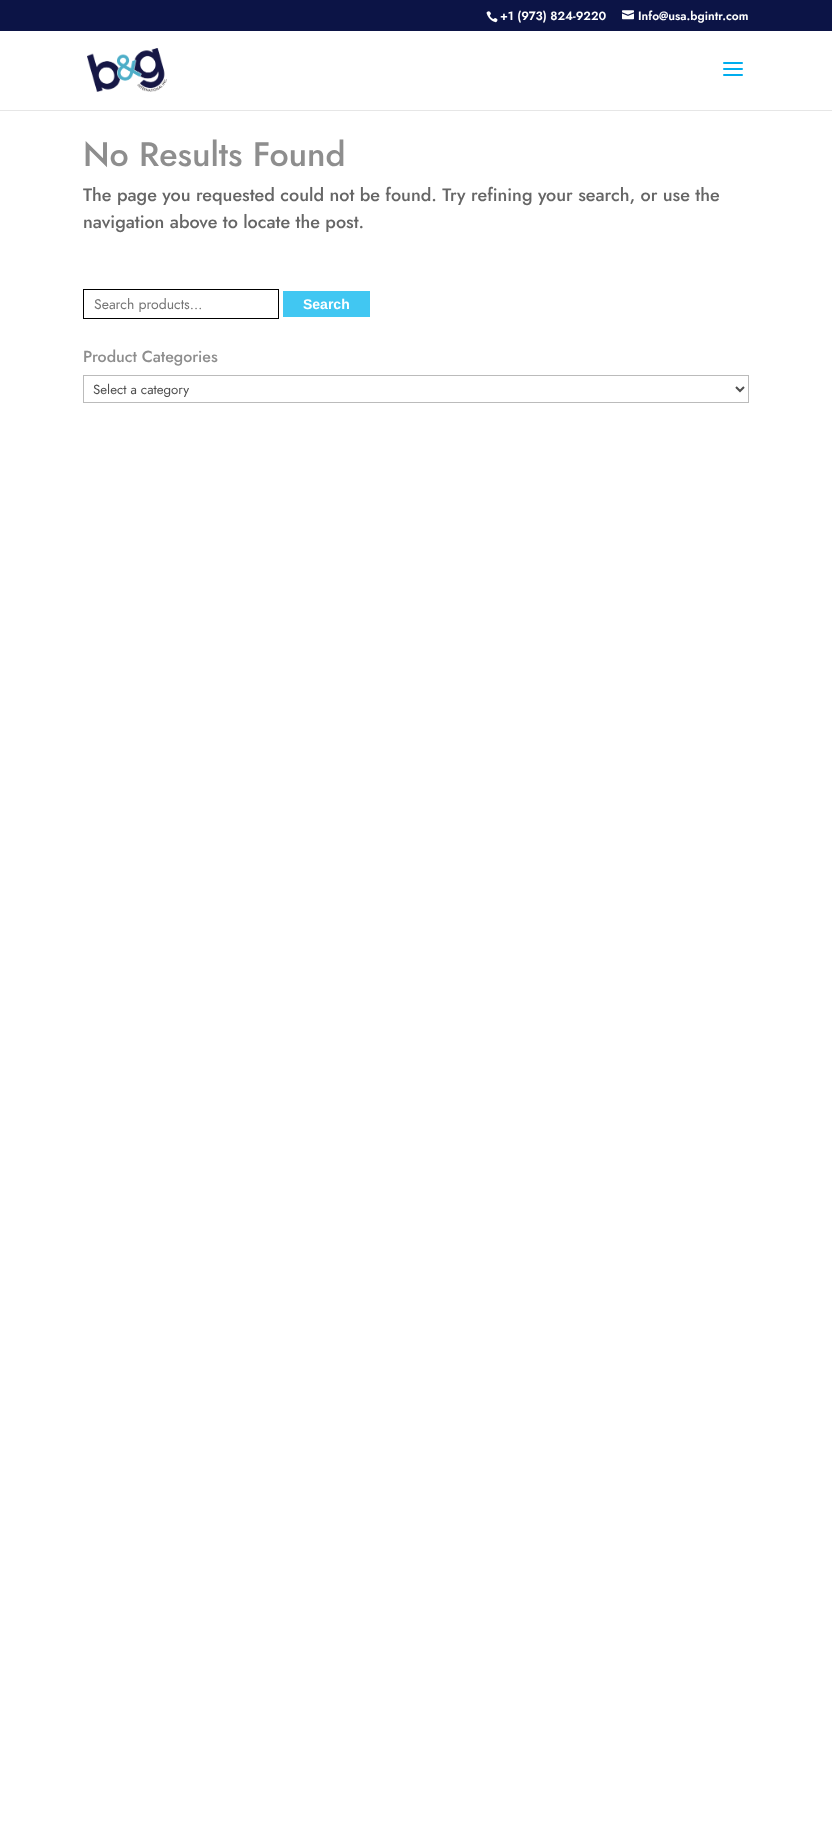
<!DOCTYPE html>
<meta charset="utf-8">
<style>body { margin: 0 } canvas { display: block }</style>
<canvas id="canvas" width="832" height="1838"></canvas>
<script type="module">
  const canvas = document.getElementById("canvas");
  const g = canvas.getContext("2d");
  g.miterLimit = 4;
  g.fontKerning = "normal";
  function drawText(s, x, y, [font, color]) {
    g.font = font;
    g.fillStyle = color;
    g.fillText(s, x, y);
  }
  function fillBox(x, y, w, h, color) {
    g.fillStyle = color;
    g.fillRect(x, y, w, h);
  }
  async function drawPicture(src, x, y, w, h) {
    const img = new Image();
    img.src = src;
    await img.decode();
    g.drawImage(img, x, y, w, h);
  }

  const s1 = ["600 12px Jost", "#FFFFFF"];
  const s2 = ["500 34px Jost", "#8E8E8E"];
  const s3 = ["500 18px Jost", "#666666"];
  const s4 = ["14px Jost", "#757575"];
  const s5 = ["bold 14px Liberation Sans", "#FFFFFF"];
  const s6 = ["500 16px Jost", "#8E8E8E"];
  const s7 = ["13.25px Jost", "#4E4E4E"];

  fillBox(0, 0, 832, 1838, "#FFFFFF");
  fillBox(0, 0, 832, 31, "#0C1446");
  await drawPicture("pic1.png", 486, 11, 12, 12);
  drawText("+1 (973) 824-9220", 500, 20, s1);
  await drawPicture("pic2.png", 622, 10, 12, 10);
  drawText("Info@usa.bgintr.com", 638, 20, s1);
  fillBox(0, 110, 832, 1, "#E6E6E6");
  await drawPicture("pic3.png", 87, 48, 80, 44);
  await drawPicture("pic4.png", 723, 62, 20, 14);
  drawText("No Results Found", 83, 166, s2);
  drawText("The page you requested could not be found. Try refining your search, or use the", 83, 201, s3);
  drawText("navigation above to locate the post.", 83, 228, s3);
  g.strokeStyle = "#000000";
  g.strokeRect(83.5, 289.5, 195, 29);
  drawText("Search products…", 94, 309, s4);
  fillBox(283, 291, 87, 26, "#41C7F2");
  drawText("Search", 303, 309, s5);
  drawText("Product Categories", 83, 362, s6);
  g.strokeStyle = "#BBBBBB";
  g.strokeRect(83.5, 375.5, 665, 27);
  g.beginPath();
  g.moveTo(736, 387);
  g.lineTo(740, 391);
  g.lineTo(744, 387);
  g.strokeStyle = "#4E4E4E";
  g.lineWidth = 2;
  g.stroke();
  drawText("Select a category", 93, 394, s7);
</script>
